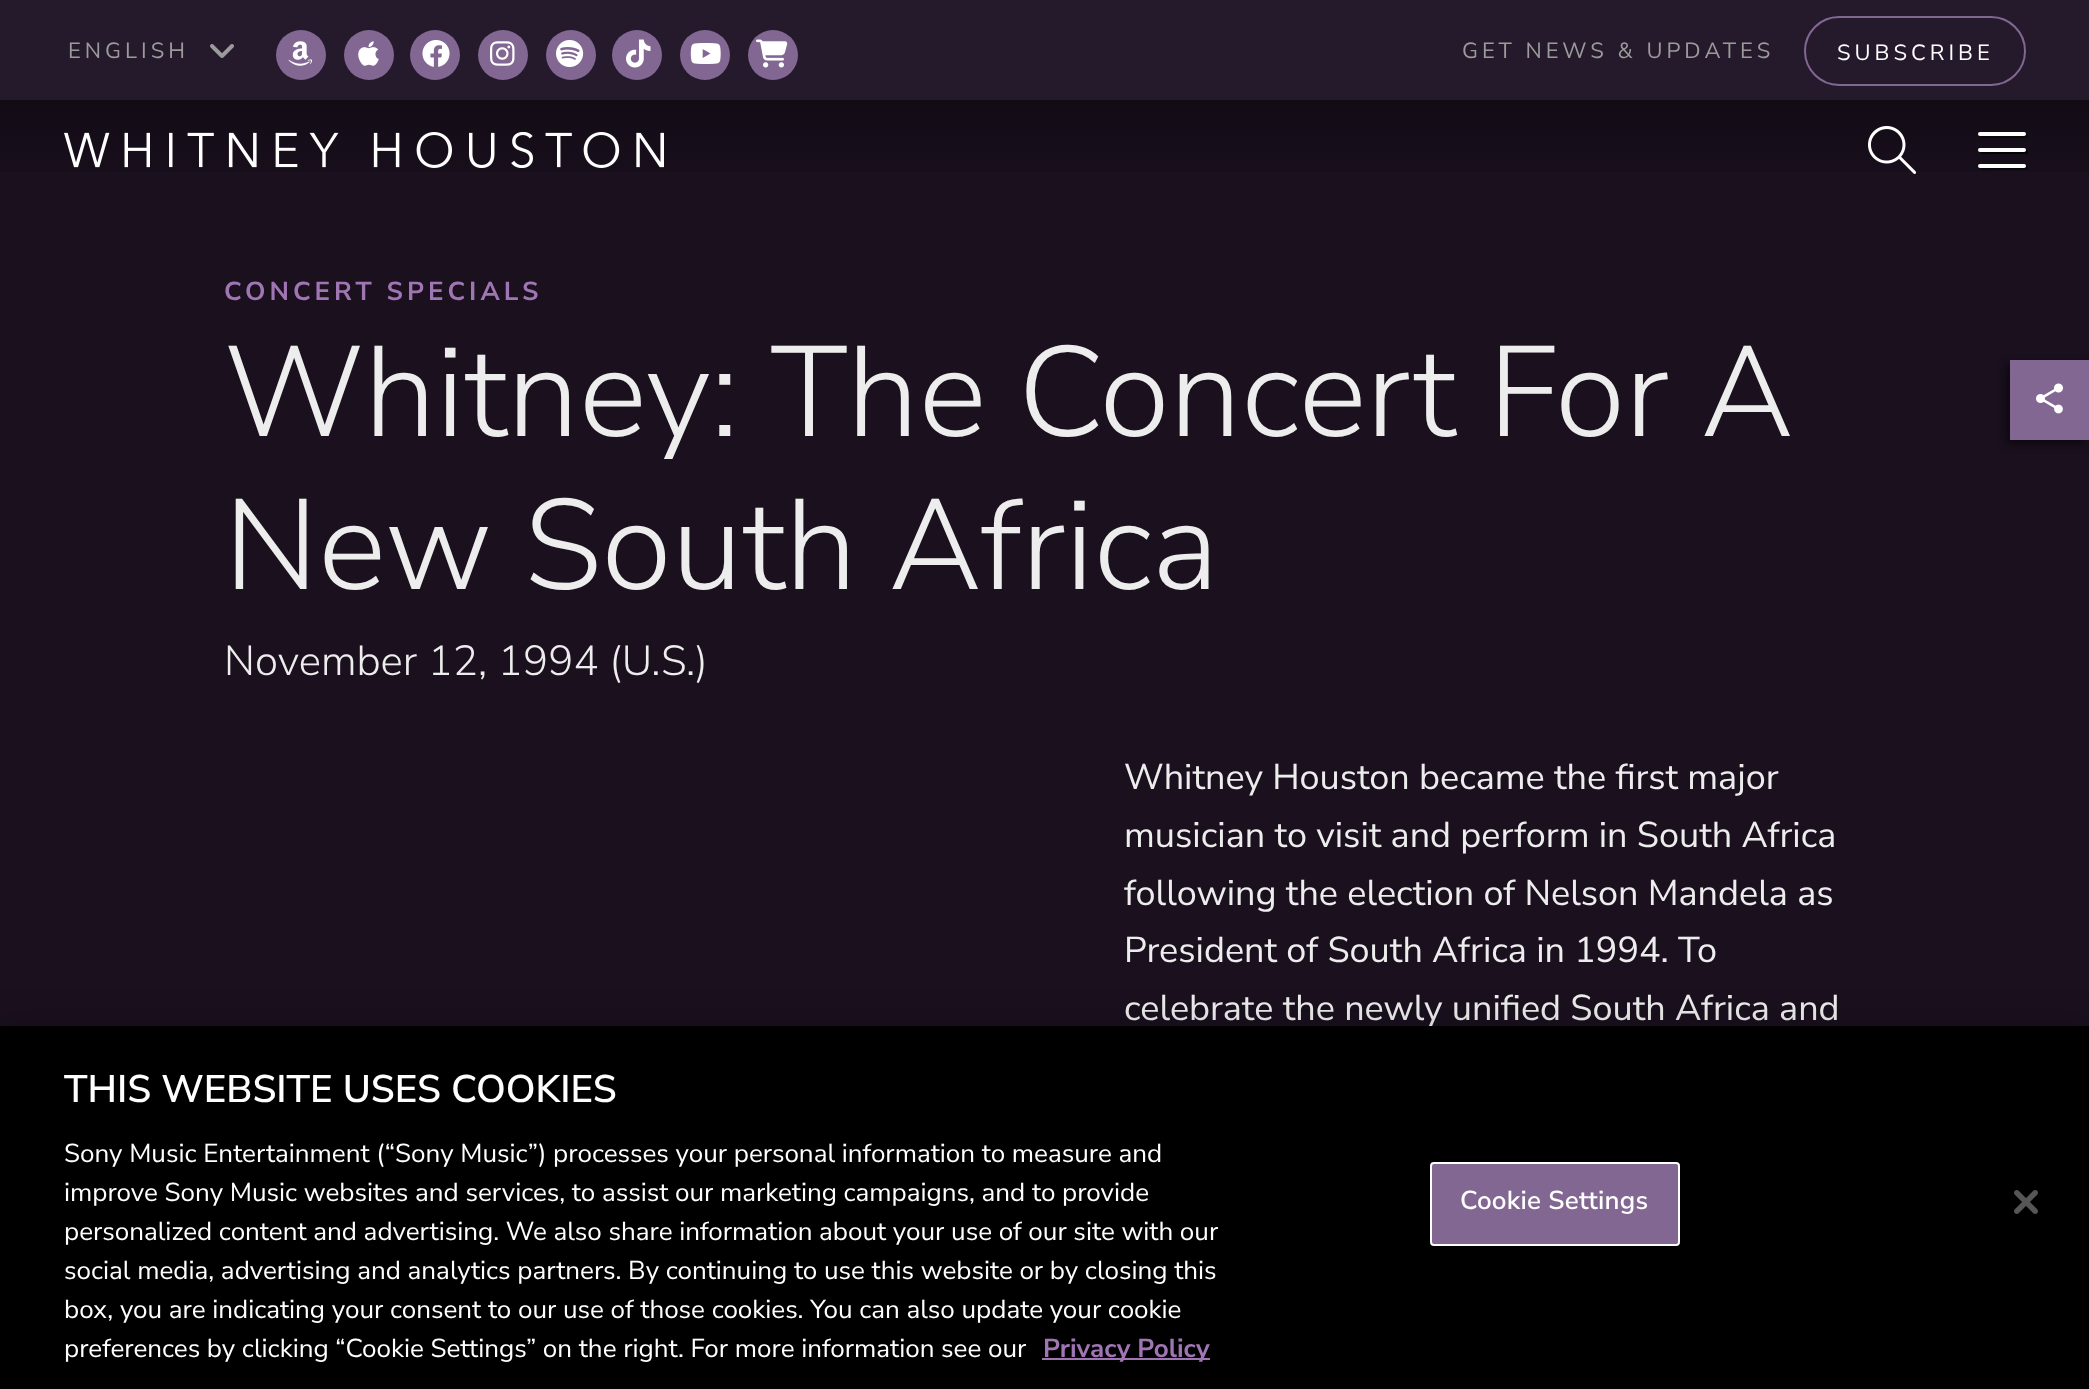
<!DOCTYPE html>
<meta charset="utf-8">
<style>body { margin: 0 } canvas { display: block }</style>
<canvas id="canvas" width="2089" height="1389"></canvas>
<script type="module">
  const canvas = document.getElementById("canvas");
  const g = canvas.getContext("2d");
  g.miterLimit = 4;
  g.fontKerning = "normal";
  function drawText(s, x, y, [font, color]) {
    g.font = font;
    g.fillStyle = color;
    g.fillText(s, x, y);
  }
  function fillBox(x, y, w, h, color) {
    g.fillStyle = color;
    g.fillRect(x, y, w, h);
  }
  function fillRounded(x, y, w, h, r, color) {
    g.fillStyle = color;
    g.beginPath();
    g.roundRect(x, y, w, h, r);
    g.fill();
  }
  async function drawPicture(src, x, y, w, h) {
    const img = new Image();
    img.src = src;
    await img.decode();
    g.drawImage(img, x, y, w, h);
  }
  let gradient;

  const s1 = ["22px Nunito Sans", "#9B9B9B"];
  const s2 = ["22px Nunito Sans", "#FFFFFF"];
  const s3 = ["bold 26px Nunito Sans", "#A075B4"];
  const s4 = ["300 128px Nunito Sans", "#EDEDED"];
  const s5 = ["300 42px Nunito Sans", "#EDEDED"];
  const s6 = ["36px Nunito Sans", "#EDEDED"];
  const s7 = ["600 38.4px Nunito Sans", "#FFFFFF"];
  const s8 = ["26px Nunito Sans", "#FFFFFF"];
  const s9 = ["600 26px Nunito Sans", "#FFFFFF"];

  fillBox(0, 0, 2089, 1389, "#1A101E");
  fillBox(0, 0, 2089, 100, "#251A2C");
  g.letterSpacing = "4px";
  drawText("ENGLISH", 68, 58, s1);
  await drawPicture("pic1.png", 210, 44, 24, 14);
  g.fillStyle = "#836793";
  g.beginPath();
  g.arc(301, 55, 25, 0, Math.PI * 2);
  g.fill();
  await drawPicture("pic2.png", 288, 41, 25, 25);
  g.beginPath();
  g.arc(369, 55, 25, 0, Math.PI * 2);
  g.fill();
  await drawPicture("pic3.png", 358, 41, 21, 25);
  g.beginPath();
  g.arc(435, 55, 25, 0, Math.PI * 2);
  g.fill();
  await drawPicture("pic4.png", 422, 39, 28, 28);
  g.beginPath();
  g.arc(503, 55, 25, 0, Math.PI * 2);
  g.fill();
  await drawPicture("pic5.png", 490, 41, 25, 25);
  g.beginPath();
  g.arc(571, 55, 25, 0, Math.PI * 2);
  g.fill();
  await drawPicture("pic6.png", 556, 39, 28, 29);
  g.beginPath();
  g.arc(637, 55, 25, 0, Math.PI * 2);
  g.fill();
  await drawPicture("pic7.png", 626, 39, 25, 29);
  g.beginPath();
  g.arc(705, 55, 25, 0, Math.PI * 2);
  g.fill();
  await drawPicture("pic8.png", 690, 43, 31, 21);
  g.beginPath();
  g.arc(773, 55, 25, 0, Math.PI * 2);
  g.fill();
  await drawPicture("pic9.png", 756, 39, 32, 29);
  drawText("GET NEWS & UPDATES", 1462, 58, s1);
  g.beginPath();
  g.roundRect(1805, 17, 220, 68, 34);
  g.strokeStyle = "#836793";
  g.lineWidth = 2;
  g.stroke();
  drawText("SUBSCRIBE", 1837, 60, s2);
  gradient = g.createLinearGradient(1045, 100, 1045, 200);
  gradient.addColorStop(0, "#120B15");
  gradient.addColorStop(1, "#1A101E");
  g.fillStyle = gradient;
  g.fillRect(0, 100, 2089, 72);
  await drawPicture("pic10.png", 64, 132, 600, 36);
  await drawPicture("pic11.png", 1868, 126, 48, 48);
  g.fillStyle = "#0B070C";
  g.beginPath();
  g.moveTo(1980, 136);
  g.bezierCurveTo(1980, 139, 1986, 138, 1989, 138);
  g.lineTo(2027, 138);
  g.bezierCurveTo(2029, 137, 2028, 134, 2026, 134);
  g.bezierCurveTo(2026, 135, 2025, 136, 2024, 136);
  g.closePath();
  g.fill();
  fillRounded(1978, 132, 48, 4, 2, "#FFFFFF");
  g.fillStyle = "#0B070D";
  g.beginPath();
  g.moveTo(1980, 152);
  g.bezierCurveTo(1980, 155, 1986, 154, 1989, 154);
  g.lineTo(2027, 154);
  g.bezierCurveTo(2029, 153, 2028, 150, 2026, 150);
  g.bezierCurveTo(2026, 151, 2025, 152, 2024, 152);
  g.closePath();
  g.fill();
  g.fillStyle = "rgba(0, 0, 0, 0.5)";
  g.beginPath();
  g.moveTo(1980, 152);
  g.bezierCurveTo(1980, 155, 1986, 154, 1989, 154);
  g.lineTo(2027, 154);
  g.bezierCurveTo(2029, 153, 2028, 150, 2026, 150);
  g.bezierCurveTo(2026, 151, 2025, 152, 2024, 152);
  g.closePath();
  g.fill();
  fillRounded(1978, 148, 48, 4, 2, "#FFFFFF");
  g.fillStyle = "#0C070E";
  g.beginPath();
  g.moveTo(1980, 168);
  g.bezierCurveTo(1980, 171, 1986, 170, 1989, 170);
  g.lineTo(2027, 170);
  g.bezierCurveTo(2029, 169, 2028, 166, 2026, 166);
  g.bezierCurveTo(2026, 167, 2025, 168, 2024, 168);
  g.closePath();
  g.fill();
  fillRounded(1978, 164, 48, 4, 2, "#FFFFFF");
  drawText("CONCERT SPECIALS", 224, 300, s3);
  g.letterSpacing = "0px";
  drawText("Whitney: The Concert For A", 224, 436, s4);
  drawText("New South Africa", 224, 589, s4);
  drawText("November 12, 1994 (U.S.)", 224, 675, s5);
  drawText("Whitney Houston became the first major", 1124, 789, s6);
  drawText("musician to visit and perform in South Africa", 1124, 847, s6);
  drawText("following the election of Nelson Mandela as", 1124, 905, s6);
  drawText("President of South Africa in 1994. To", 1124, 962, s6);
  drawText("celebrate the newly unified South Africa and", 1124, 1020, s6);
  g.fillStyle = "rgba(0, 0, 0, 0.5)";
  g.filter = "blur(4px)";
  g.beginPath();
  g.rect(2006, 364, 80, 80);
  g.fill();
  g.filter = "none";
  fillBox(2010, 360, 79, 80, "#836793");
  await drawPicture("pic12.png", 2036, 383, 27, 31);
  g.fillStyle = "rgba(0, 0, 0, 0.2)";
  g.filter = "blur(18px)";
  g.beginPath();
  g.rect(0, 1026, 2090, 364);
  g.fill();
  g.filter = "none";
  fillBox(0, 1026, 2089, 363, "#000000");
  drawText("THIS WEBSITE USES COOKIES", 64, 1102, s7);
  drawText("Sony Music Entertainment (“Sony Music”) processes your personal information to measure and", 64, 1162, s8);
  drawText("improve Sony Music websites and services, to assist our marketing campaigns, and to provide", 64, 1201, s8);
  drawText("personalized content and advertising. We also share information about your use of our site with our", 64, 1240, s8);
  drawText("social media, advertising and analytics partners. By continuing to use this website or by closing this", 64, 1279, s8);
  drawText("box, you are indicating your consent to our use of those cookies. You can also update your cookie", 64, 1318, s8);
  drawText("preferences by clicking “Cookie Settings” on the right. For more information see our", 64, 1357, s8);
  fillBox(1042, 1358, 168, 2, "#A075B4");
  drawText("Privacy Policy", 1043, 1357, s3);
  g.fillStyle = "#836793";
  g.beginPath();
  g.roundRect(1431, 1163, 248, 82, 3);
  g.fill();
  g.strokeStyle = "#FFFFFF";
  g.stroke();
  g.letterSpacing = "0.25px";
  drawText("Cookie Settings", 1460, 1209, s9);
  await drawPicture("pic13.png", 2014, 1190, 24, 24);
</script>
